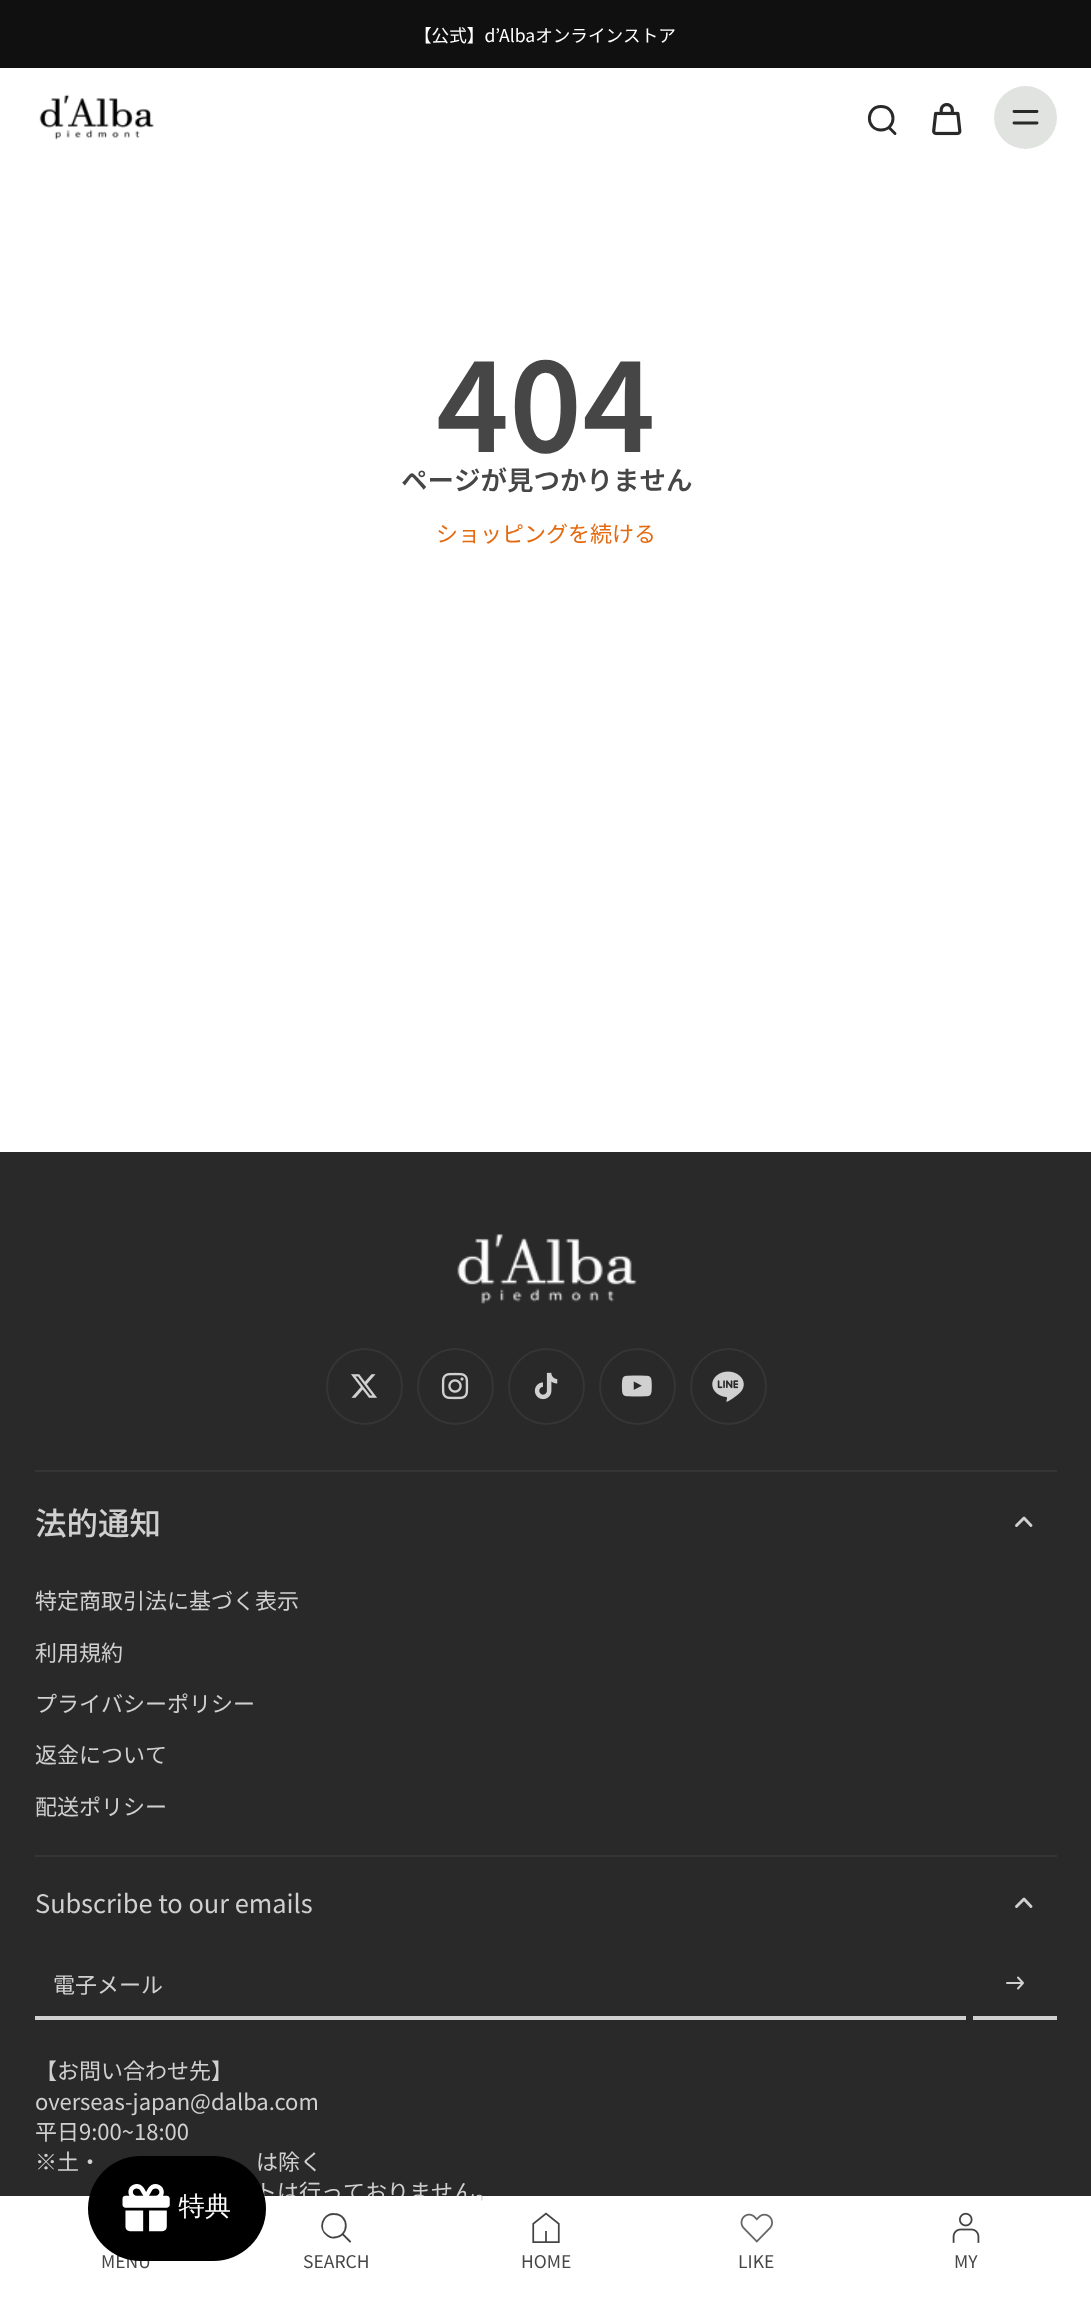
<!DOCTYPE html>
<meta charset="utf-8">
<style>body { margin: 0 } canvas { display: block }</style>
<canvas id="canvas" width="1091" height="2312"></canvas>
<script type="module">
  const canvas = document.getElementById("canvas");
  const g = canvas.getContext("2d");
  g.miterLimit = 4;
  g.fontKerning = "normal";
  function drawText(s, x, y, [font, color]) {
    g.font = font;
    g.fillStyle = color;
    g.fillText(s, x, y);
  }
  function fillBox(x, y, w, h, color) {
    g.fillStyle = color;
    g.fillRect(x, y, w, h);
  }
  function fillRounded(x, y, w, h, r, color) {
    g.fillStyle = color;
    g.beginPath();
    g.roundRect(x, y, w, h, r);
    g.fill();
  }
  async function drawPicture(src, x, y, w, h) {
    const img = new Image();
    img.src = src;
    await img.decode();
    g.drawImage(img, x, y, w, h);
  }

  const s1 = ["17.6px Noto Sans JP", "#FFFFFF"];
  const s2 = ["600 126px Noto Sans JP", "#454645"];
  const s3 = ["600 26.5px Noto Sans JP", "#454645"];
  const s4 = ["22px Noto Sans JP", "#E5690F"];
  const s5 = ["500 31.5px Noto Sans JP", "#D0D0D0"];
  const s6 = ["22px Noto Sans JP", "#D0D0D0"];
  const s7 = ["25.4px Noto Sans JP", "#D0D0D0"];
  const s8 = ["17.5px Noto Sans JP", "#454645"];

  fillBox(0, 0, 1091, 2312, "#FFFFFF");
  fillBox(0, 0, 1091, 68, "#101010");
  drawText("【公式】d’Albaオンラインストア", 414, 42, s1);
  await drawPicture("pic1.png", 39, 94, 115, 46);
  g.beginPath();
  g.moveTo(881, 130);
  g.bezierCurveTo(897, 130, 897, 106.5, 881, 106.5);
  g.bezierCurveTo(865.5, 106.5, 865.5, 130, 881, 130);
  g.closePath();
  g.strokeStyle = "#282928";
  g.lineWidth = 2.9;
  g.stroke();
  g.beginPath();
  g.moveTo(889.5, 128);
  g.lineTo(895, 133.5);
  g.lineCap = "round";
  g.stroke();
  await drawPicture("pic2.png", 932, 103, 30, 33);
  g.fillStyle = "#E1E3E1";
  g.beginPath();
  g.arc(1025.5, 117.5, 31.5, 0, Math.PI * 2);
  g.fill();
  g.beginPath();
  g.moveTo(1014, 111.5);
  g.lineTo(1037, 111.5);
  g.moveTo(1014, 123);
  g.lineTo(1037, 123);
  g.stroke();
  drawText("404", 436, 452, s2);
  drawText("ページが見つかりません", 401, 490, s3);
  drawText("ショッピングを続ける", 436, 542, s4);
  fillBox(0, 1152, 1091, 1044, "#282928");
  await drawPicture("pic3.png", 457, 1234, 180, 70);
  fillBox(35, 1470, 1022, 2, "#343634");
  g.beginPath();
  g.arc(364.5, 1386.5, 37.5, 0, Math.PI * 2);
  g.strokeStyle = "#343634";
  g.lineWidth = 2;
  g.stroke();
  await drawPicture("pic4.png", 351, 1374, 26, 24);
  g.beginPath();
  g.arc(455.5, 1386.5, 37.5, 0, Math.PI * 2);
  g.stroke();
  await drawPicture("pic5.png", 441, 1372, 28, 28);
  g.beginPath();
  g.arc(546.5, 1386.5, 37.5, 0, Math.PI * 2);
  g.stroke();
  await drawPicture("pic6.png", 534, 1372, 24, 28);
  g.beginPath();
  g.arc(637.5, 1386.5, 37.5, 0, Math.PI * 2);
  g.stroke();
  await drawPicture("pic7.png", 621, 1375, 31, 22);
  g.beginPath();
  g.arc(728.5, 1386.5, 37.5, 0, Math.PI * 2);
  g.stroke();
  await drawPicture("pic8.png", 712, 1371, 32, 31);
  fillBox(35, 1855, 1022, 2, "#343634");
  drawText("法的通知", 35, 1535, s5);
  g.beginPath();
  g.moveTo(1031, 1525.5);
  g.lineTo(1024, 1518);
  g.lineTo(1016.5, 1525.5);
  g.strokeStyle = "#D0D0D0";
  g.lineWidth = 2.9;
  g.lineJoin = "round";
  g.stroke();
  drawText("特定商取引法に基づく表示", 35, 1609, s6);
  drawText("利用規約", 35, 1661, s6);
  drawText("プライバシーポリシー", 35, 1712, s6);
  drawText("返金について", 35, 1763, s6);
  drawText("配送ポリシー", 35, 1815, s6);
  drawText("Subscribe to our emails", 35, 1913, s7);
  g.beginPath();
  g.moveTo(1031, 1906.5);
  g.lineTo(1024, 1899);
  g.lineTo(1016.5, 1906.5);
  g.stroke();
  drawText("電子メール", 53, 1993, s6);
  fillBox(35, 2016, 931, 4, "#D0D0D0");
  fillBox(973, 2016, 84, 4, "#D0D0D0");
  g.beginPath();
  g.moveTo(1018, 1988.5);
  g.lineTo(1023, 1983);
  g.lineTo(1018, 1977.5);
  g.moveTo(1007, 1983);
  g.lineTo(1022, 1983);
  g.lineWidth = 2;
  g.stroke();
  drawText("【お問い合わせ先】", 35, 2079, s6);
  drawText("overseas-japan@dalba.com", 35, 2110, s6);
  drawText("平日9:00~18:00", 35, 2140, s6);
  drawText("※土・", 35, 2170, s6);
  drawText("は除く", 256, 2170, s6);
  drawText("トは行っておりません。", 255, 2200, s6);
  fillBox(262, 2196, 219, 6, "#FFFFFF");
  drawText("MENU", 101, 2268, s8);
  fillRounded(88, 2156, 178, 105, 52.5, "#000000");
  await drawPicture("pic9.png", 122, 2184, 108, 48);
  g.beginPath();
  g.moveTo(343.5, 2235);
  g.lineTo(350, 2241.5);
  g.moveTo(334, 2214);
  g.bezierCurveTo(322.5, 2213.5, 317.5, 2229, 327.5, 2235.5);
  g.bezierCurveTo(329.5, 2237, 332, 2238, 334, 2237.5);
  g.bezierCurveTo(350, 2237, 349.5, 2214, 334, 2214);
  g.closePath();
  g.strokeStyle = "#444444";
  g.lineWidth = 1.8;
  g.lineCap = "square";
  g.lineJoin = "miter";
  g.stroke();
  drawText("SEARCH", 303, 2268, s8);
  await drawPicture("pic10.png", 532, 2212, 28, 31);
  drawText("HOME", 521, 2268, s8);
  await drawPicture("pic11.png", 740, 2213, 33, 30);
  drawText("LIKE", 738, 2268, s8);
  await drawPicture("pic12.png", 952, 2212, 28, 31);
  drawText("MY", 954, 2268, s8);
</script>
